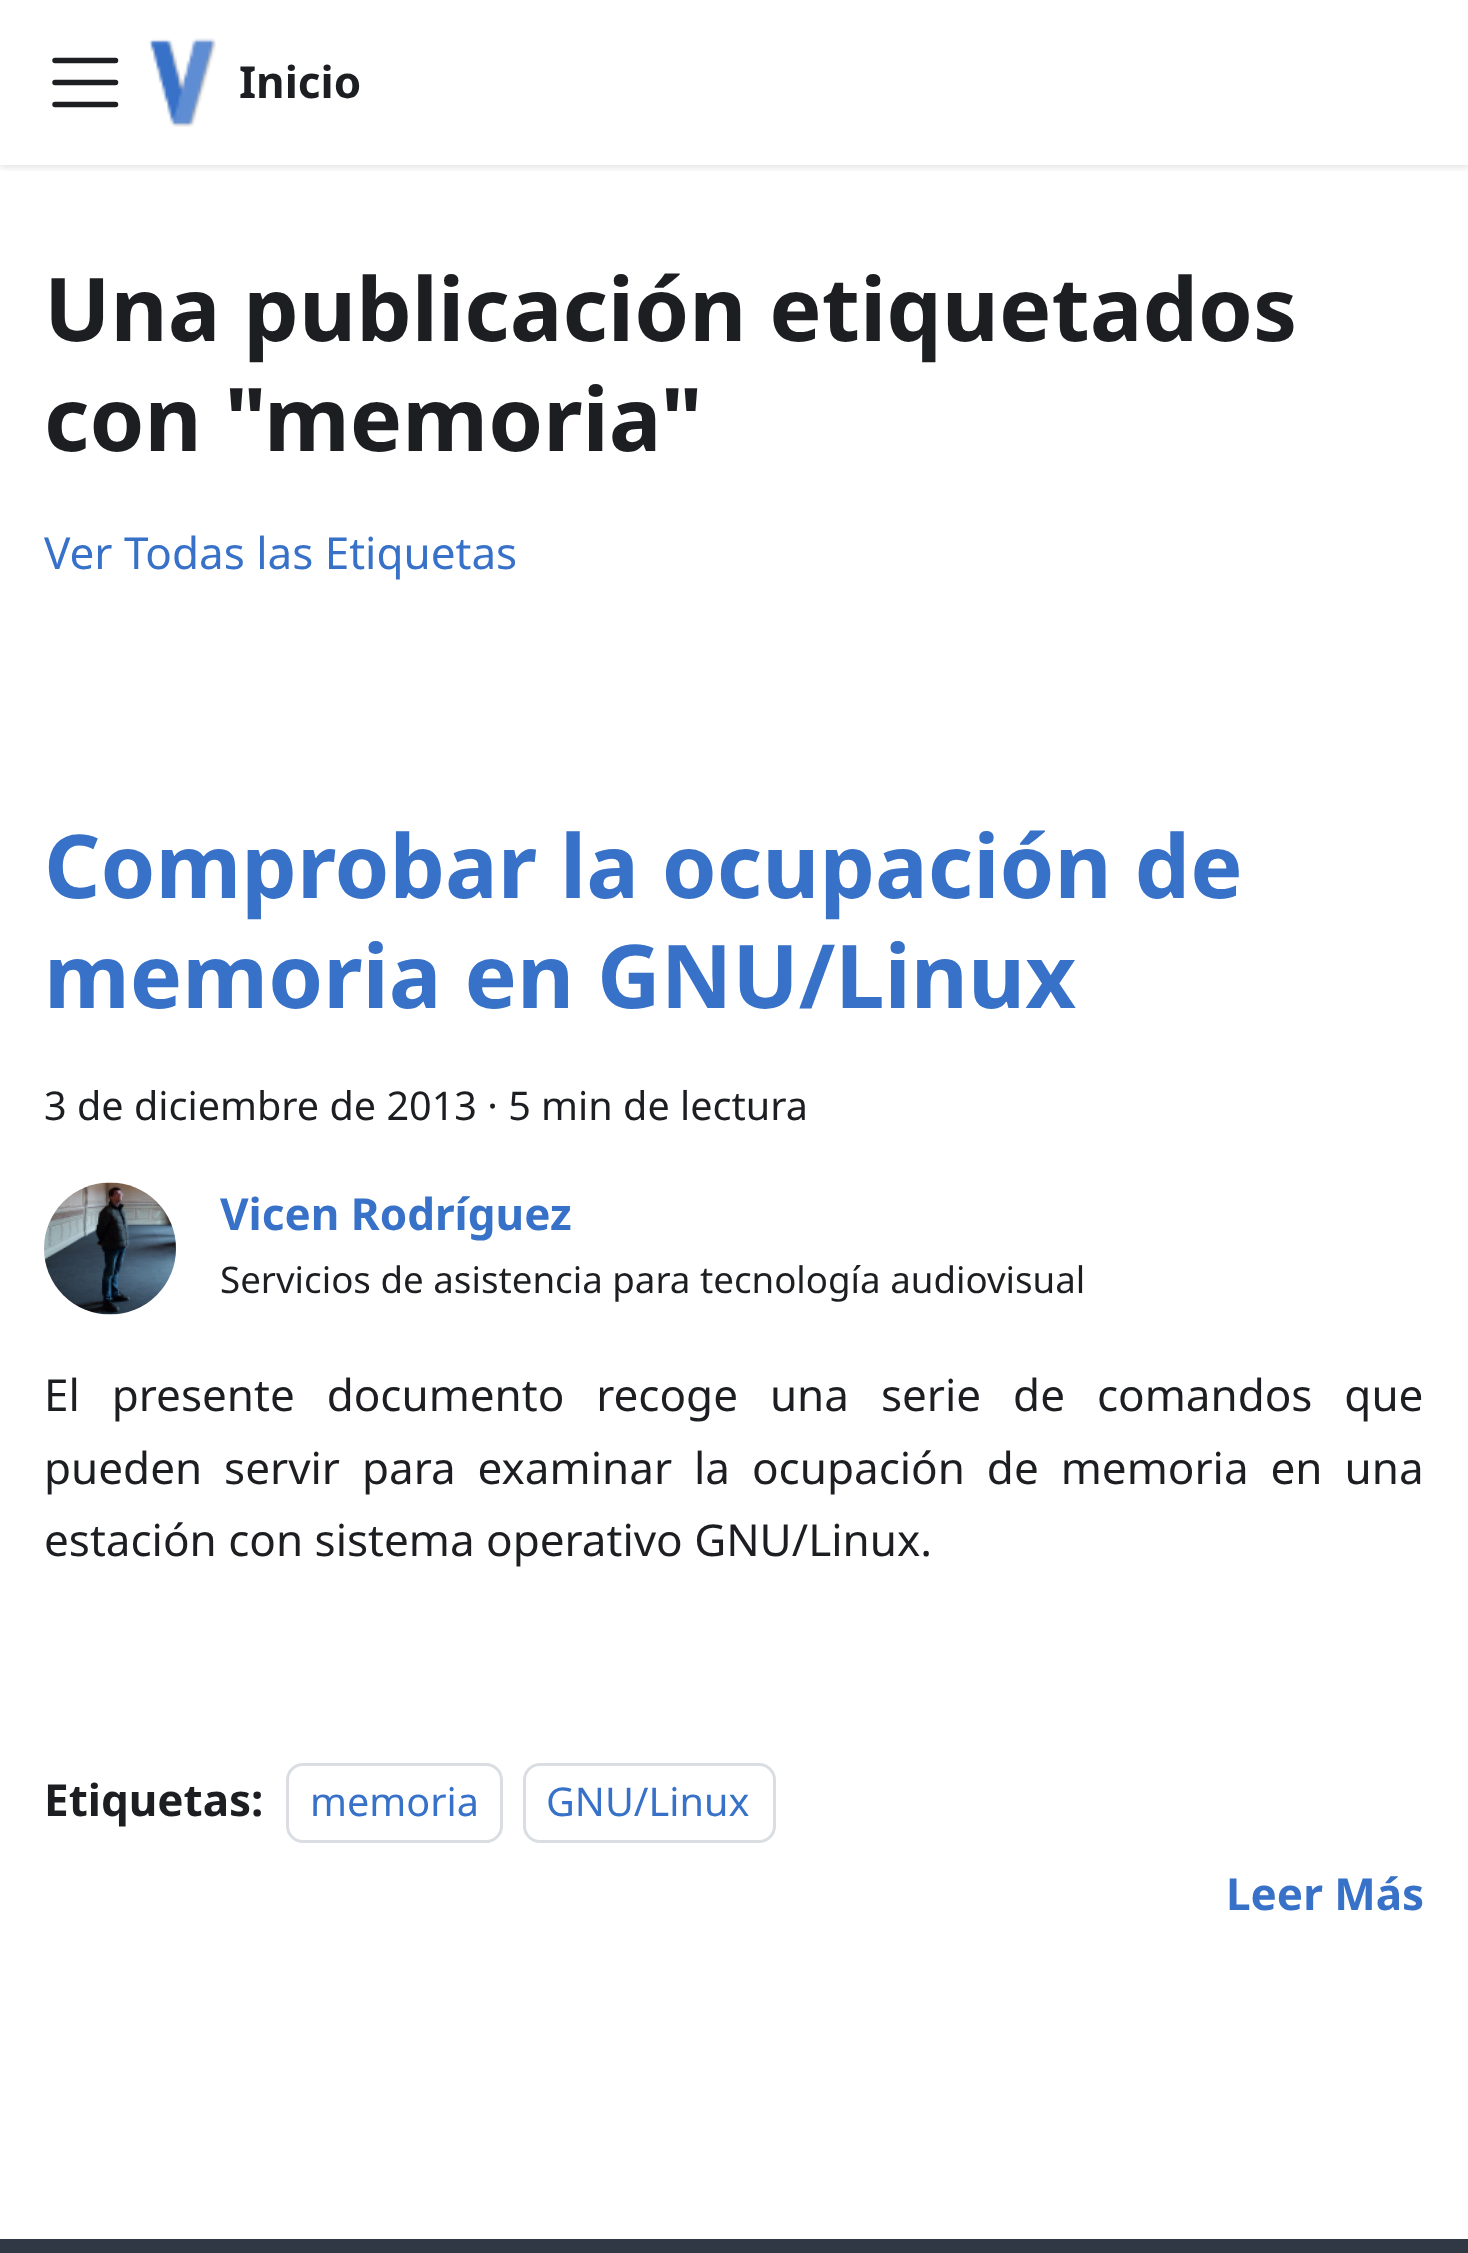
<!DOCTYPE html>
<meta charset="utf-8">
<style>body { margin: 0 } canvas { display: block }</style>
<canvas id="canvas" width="1468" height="2253"></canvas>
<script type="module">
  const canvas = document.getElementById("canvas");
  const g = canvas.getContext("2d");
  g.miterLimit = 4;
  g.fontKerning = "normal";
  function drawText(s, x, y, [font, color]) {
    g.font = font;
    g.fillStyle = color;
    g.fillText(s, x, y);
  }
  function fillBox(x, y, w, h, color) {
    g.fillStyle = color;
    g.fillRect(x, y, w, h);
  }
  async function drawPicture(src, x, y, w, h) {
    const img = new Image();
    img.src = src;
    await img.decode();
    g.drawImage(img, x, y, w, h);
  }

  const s1 = ["bold 44px Noto Sans", "#1C1E21"];
  const s2 = ["bold 88px Noto Sans", "#1C1E21"];
  const s3 = ["44px Noto Sans", "#3771C8"];
  const s4 = ["bold 88px Noto Sans", "#3771C8"];
  const s5 = ["39.6px Noto Sans", "#1C1E21"];
  const s6 = ["bold 44px Noto Sans", "#3771C8"];
  const s7 = ["36.7px Noto Sans", "#1C1E21"];
  const s8 = ["44px Noto Sans", "#1C1E21"];
  const s9 = ["39.6px Noto Sans", "#3771C8"];

  fillBox(0, 0, 1468, 2253, "#FFFFFF");
  g.save();
  g.beginPath();
  g.rect(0, 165, 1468, 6);
  g.clip();
  g.fillStyle = "rgba(0, 0, 0, 0.1)";
  g.filter = "blur(3px)";
  g.beginPath();
  g.rect(0, 3, 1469, 165);
  g.fill();
  g.filter = "none";
  g.restore();
  g.beginPath();
  g.moveTo(55, 60.5);
  g.lineTo(115.5, 60.5);
  g.moveTo(55, 82.5);
  g.lineTo(115.5, 82.5);
  g.moveTo(55, 104.5);
  g.lineTo(115.5, 104.5);
  g.strokeStyle = "#1C1E21";
  g.lineWidth = 5.5;
  g.lineCap = "round";
  g.stroke();
  await drawPicture("pic1.png", 148, 38, 68, 89);
  drawText("Inicio", 239, 98, s1);
  drawText("Una publicación etiquetados", 44, 341, s2);
  drawText("con \"memoria\"", 44, 451, s2);
  drawText("Ver Todas las Etiquetas", 44, 569, s3);
  drawText("Comprobar la ocupación de", 44, 898, s4);
  drawText("memoria en GNU/Linux", 44, 1008, s4);
  drawText("3 de diciembre de 2013 · 5 min de lectura", 44, 1120, s5);
  await drawPicture("pic2.png", 44, 1182, 132, 133);
  drawText("Vicen Rodríguez", 220, 1230, s6);
  drawText("Servicios de asistencia para tecnología audiovisual", 220, 1293, s7);
  g.wordSpacing = "20.5px";
  drawText("El presente documento recoge una serie de comandos que", 44, 1411, s8);
  g.wordSpacing = "10.5px";
  drawText("pueden servir para examinar la ocupación de memoria en una", 44, 1484, s8);
  g.wordSpacing = "0px";
  drawText("estación con sistema operativo GNU/Linux.", 44, 1556, s8);
  drawText("Etiquetas:", 44, 1816, s1);
  g.beginPath();
  g.roundRect(287.5, 1764.5, 214, 77, 15.5);
  g.strokeStyle = "#DADDE1";
  g.lineWidth = 3;
  g.stroke();
  drawText("memoria", 310, 1816, s9);
  g.beginPath();
  g.roundRect(524.5, 1764.5, 250, 77, 15.5);
  g.stroke();
  drawText("GNU/Linux", 546, 1816, s9);
  drawText("Leer Más", 1226, 1910, s6);
  fillBox(0, 2239, 1468, 14, "#303846");
</script>
